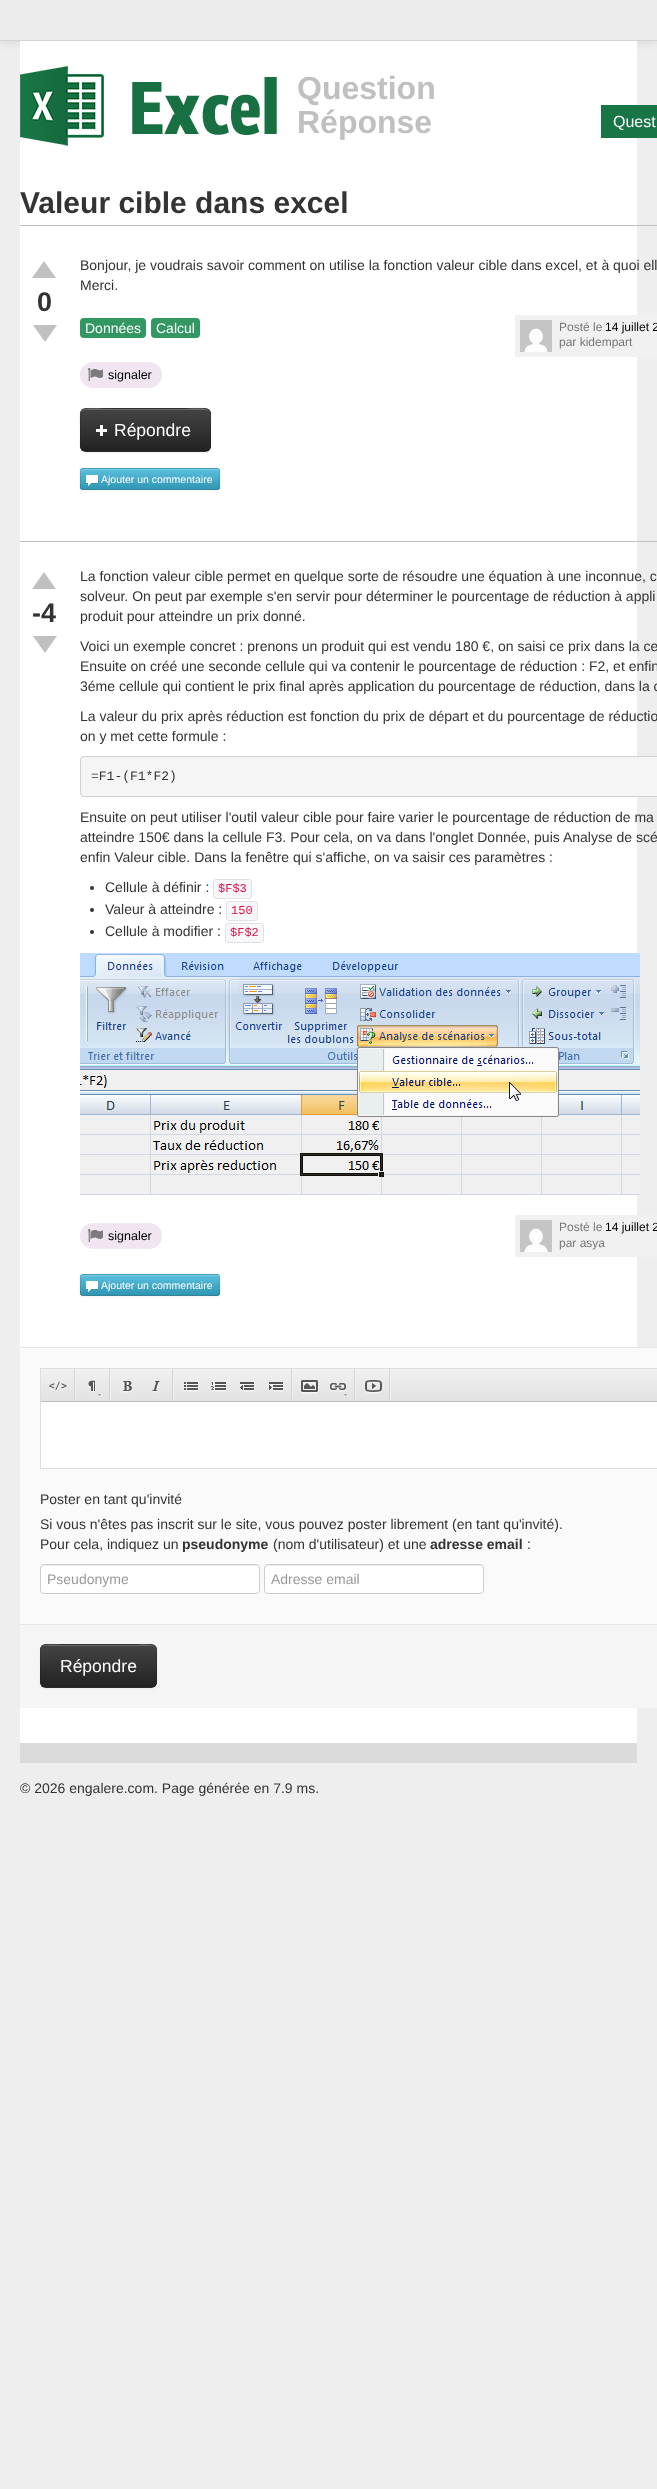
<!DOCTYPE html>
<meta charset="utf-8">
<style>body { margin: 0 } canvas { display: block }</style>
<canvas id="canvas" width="657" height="2489"></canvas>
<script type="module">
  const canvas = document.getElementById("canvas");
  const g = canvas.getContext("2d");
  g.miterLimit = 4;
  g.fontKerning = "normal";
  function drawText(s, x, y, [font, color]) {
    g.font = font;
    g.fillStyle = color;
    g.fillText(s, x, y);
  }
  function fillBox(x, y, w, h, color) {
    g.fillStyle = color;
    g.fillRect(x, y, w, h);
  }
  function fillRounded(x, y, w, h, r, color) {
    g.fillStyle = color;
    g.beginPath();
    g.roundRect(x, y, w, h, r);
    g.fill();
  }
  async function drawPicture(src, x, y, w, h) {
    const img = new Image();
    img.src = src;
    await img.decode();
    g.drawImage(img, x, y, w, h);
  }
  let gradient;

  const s1 = ["bold 32px Liberation Sans", "#C0C0C0"];
  const s2 = ["16px Liberation Sans", "#FFFFFF"];
  const s3 = ["bold 30px Liberation Sans", "#333333"];
  const s4 = ["bold 27px Liberation Sans", "#333333"];
  const s5 = ["14px Liberation Sans", "#333333"];
  const s6 = ["14px Liberation Sans", "#FFFFFF"];
  const s7 = ["12px Liberation Sans", "#777777"];
  const s8 = ["12px Liberation Sans", "#000000"];
  const s9 = ["12.5px Liberation Sans", "#000000"];
  const s10 = ["17.5px Liberation Sans", "#FFFFFF"];
  const s11 = ["10.5px Liberation Sans", "#FFFFFF"];
  const s12 = ["13px Liberation Mono", "#333333"];
  const s13 = ["12px Liberation Mono", "#DD1144"];
  const s14 = ["bold 14px Liberation Sans", "#333333"];
  const s15 = ["14px Liberation Sans", "#999999"];

  fillBox(0, 0, 657, 2489, "#EEEEEE");
  g.fillStyle = "rgba(0, 0, 0, 0.1)";
  g.filter = "blur(5px)";
  g.beginPath();
  g.rect(0, 1, 657, 41);
  g.fill();
  g.filter = "none";
  fillBox(0, 0, 657, 40, "#ECECEC");
  fillBox(0, 40, 657, 1, "#D4D4D4");
  fillBox(20, 41, 617, 1702, "#FFFFFF");
  fillBox(20, 1743, 617, 20, "#DBDBDB");
  await drawPicture("pic1.png", 20, 66, 257, 80);
  drawText("Question", 297, 99, s1);
  drawText("Réponse", 297, 133, s1);
  fillBox(601, 105, 56, 33, "#187545");
  drawText("Quest", 613, 127, s2);
  fillBox(20, 225, 637, 1, "#C0C0C0");
  drawText("Valeur cible dans excel", 20, 213, s3);
  await drawPicture("pic2.png", 32, 261, 24, 17);
  drawText("0", 37, 311, s4);
  await drawPicture("pic3.png", 33, 325, 24, 17);
  drawText("Bonjour, je voudrais savoir comment on utilise la fonction valeur cible dans excel, et à quoi ell", 80, 270, s5);
  drawText("Merci.", 80, 290, s5);
  fillRounded(80, 318, 66, 20, 4, "#329763");
  drawText("Données", 85, 333, s6);
  fillRounded(151, 318, 49, 20, 4, "#329763");
  drawText("Calcul", 156, 333, s6);
  fillBox(515, 315, 142, 42, "#F1F1F1");
  await drawPicture("pic4.png", 520, 320, 32, 32);
  drawText("Posté le", 559, 331, s7);
  drawText("14 juillet 2", 605, 331, s8);
  drawText("par kidempart", 559, 346, s7);
  fillRounded(80, 362, 82, 26, 13, "#F0E5F1");
  await drawPicture("pic5.png", 88, 368, 15, 13);
  drawText("signaler", 108, 379, s9);
  g.fillStyle = "rgba(0, 0, 0, 0.05)";
  g.filter = "blur(1px)";
  g.beginPath();
  g.roundRect(80, 409, 131, 44, 6);
  g.fill();
  g.filter = "none";
  fillRounded(80, 408, 131, 44, 6, "#363636");
  g.save();
  g.beginPath();
  g.roundRect(80, 408, 131, 44, 6);
  g.clip();
  gradient = g.createLinearGradient(146, 409, 146, 451);
  gradient.addColorStop(0, "#444444");
  gradient.addColorStop(1, "#222222");
  g.fillStyle = gradient;
  g.fillRect(80, 409, 131, 42);
  g.restore();
  g.fillStyle = "rgba(255, 255, 255, 0.2)";
  g.beginPath();
  g.moveTo(86, 410);
  g.lineTo(205, 410);
  g.bezierCurveTo(208, 410, 210, 412, 210, 415);
  g.bezierCurveTo(210, 404, 189, 409, 185, 409);
  g.lineTo(106, 409);
  g.bezierCurveTo(102, 409, 81, 404, 81, 415);
  g.bezierCurveTo(81, 412, 83, 410, 86, 410);
  g.closePath();
  g.fill();
  g.beginPath();
  g.moveTo(209, 450);
  g.lineTo(205.5, 451.5);
  g.lineTo(85.5, 451.5);
  g.lineTo(82, 450);
  g.strokeStyle = "rgba(0, 0, 0, 0.25)";
  g.stroke();
  g.beginPath();
  g.moveTo(82, 450);
  g.bezierCurveTo(79, 446.5, 80.5, 439, 80.5, 435.5);
  g.bezierCurveTo(80.5, 405, 75, 408.5, 106, 408.5);
  g.lineTo(185, 408.5);
  g.bezierCurveTo(213.5, 408.5, 210.5, 404, 210.5, 430);
  g.lineTo(210.5, 440.5);
  g.bezierCurveTo(210.5, 443.5, 211.5, 447.5, 209, 450);
  g.strokeStyle = "rgba(0, 0, 0, 0.1)";
  g.stroke();
  await drawPicture("pic6.png", 96, 425, 11, 12);
  drawText("Répondre", 114, 436, s10);
  g.fillStyle = "rgba(0, 0, 0, 0.05)";
  g.filter = "blur(1px)";
  g.beginPath();
  g.roundRect(80, 469, 140, 22, 3);
  g.fill();
  g.filter = "none";
  fillRounded(80, 468, 140, 22, 3, "#49AFCD");
  g.save();
  g.beginPath();
  g.roundRect(80, 468, 140, 22, 3);
  g.clip();
  gradient = g.createLinearGradient(150, 469, 150, 489);
  gradient.addColorStop(0, "#5BC0DE");
  gradient.addColorStop(1, "#2F96B4");
  g.fillStyle = gradient;
  g.fillRect(80, 469, 140, 20);
  g.restore();
  g.fillStyle = "#7BCCE4";
  g.beginPath();
  g.moveTo(83, 470);
  g.lineTo(217, 470);
  g.bezierCurveTo(218, 470, 219, 471, 219, 472);
  g.bezierCurveTo(219, 471, 219, 469, 217, 469);
  g.lineTo(83, 469);
  g.bezierCurveTo(81, 469, 81, 471, 81, 472);
  g.bezierCurveTo(81, 471, 82, 470, 83, 470);
  g.closePath();
  g.fill();
  g.beginPath();
  g.moveTo(219, 489);
  g.lineTo(217, 489.5);
  g.lineTo(83, 489.5);
  g.lineTo(81, 489);
  g.strokeStyle = "rgba(0, 0, 0, 0.25)";
  g.stroke();
  g.beginPath();
  g.moveTo(81, 489);
  g.bezierCurveTo(79.5, 487, 80.5, 481, 80.5, 479);
  g.bezierCurveTo(80.5, 477, 79, 468.5, 83, 468.5);
  g.lineTo(217, 468.5);
  g.bezierCurveTo(221, 468.5, 219.5, 477, 219.5, 479);
  g.bezierCurveTo(219.5, 481, 220.5, 487, 219, 489);
  g.strokeStyle = "rgba(0, 0, 0, 0.1)";
  g.stroke();
  await drawPicture("pic7.png", 86, 475, 12, 12);
  drawText("Ajouter un commentaire", 101, 483, s11);
  fillBox(20, 541, 637, 1, "#C0C0C0");
  await drawPicture("pic2.png", 32, 572, 24, 17);
  drawText("-4", 32, 622, s4);
  await drawPicture("pic3.png", 33, 636, 24, 17);
  drawText("La fonction valeur cible permet en quelque sorte de résoudre une équation à une inconnue, c", 80, 581, s5);
  drawText("solveur. On peut par exemple s'en servir pour déterminer le pourcentage de réduction à appli", 80, 601, s5);
  drawText("produit pour atteindre un prix donné.", 80, 621, s5);
  drawText("Voici un exemple concret : prenons un produit qui est vendu 180 €, on saisi ce prix dans la ce", 80, 651, s5);
  drawText("Ensuite on créé une seconde cellule qui va contenir le pourcentage de réduction : F2, et enfin", 80, 671, s5);
  drawText("3éme cellule qui contient le prix final après application du pourcentage de réduction, dans la c", 80, 691, s5);
  drawText("La valeur du prix après réduction est fonction du prix de départ et du pourcentage de réductio", 80, 721, s5);
  drawText("on y met cette formule :", 80, 741, s5);
  fillRounded(80, 756, 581, 41, 4, "#F5F5F5");
  g.beginPath();
  g.roundRect(80.5, 756.5, 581, 40, 3.5);
  g.strokeStyle = "rgba(0, 0, 0, 0.15)";
  g.stroke();
  drawText("=F1-(F1*F2)", 91, 780, s12);
  drawText("Ensuite on peut utiliser l'outil valeur cible pour faire varier le pourcentage de réduction de ma", 80, 822, s5);
  drawText("atteindre 150€ dans la cellule F3. Pour cela, on va dans l'onglet Donnée, puis Analyse de scé", 80, 842, s5);
  drawText("enfin Valeur cible. Dans la fenêtre qui s'affiche, on va saisir ces paramètres :", 80, 862, s5);
  g.beginPath();
  g.arc(92, 888, 2, 0, Math.PI * 2);
  g.fill();
  drawText("Cellule à définir :", 105, 892, s5);
  g.fillStyle = "#F7F7F9";
  g.beginPath();
  g.roundRect(213.5, 879.5, 38, 19, 2.5);
  g.fill();
  g.strokeStyle = "#E1E1E8";
  g.stroke();
  drawText("$F$3", 218, 892, s13);
  g.fillStyle = "#333333";
  g.beginPath();
  g.arc(92, 910, 2, 0, Math.PI * 2);
  g.fill();
  drawText("Valeur à atteindre :", 105, 914, s5);
  g.fillStyle = "#F7F7F9";
  g.beginPath();
  g.roundRect(226.5, 901.5, 31, 19, 2.5);
  g.fill();
  g.stroke();
  drawText("150", 231, 914, s13);
  g.fillStyle = "#333333";
  g.beginPath();
  g.arc(92, 932, 2, 0, Math.PI * 2);
  g.fill();
  drawText("Cellule à modifier :", 105, 936, s5);
  g.fillStyle = "#F7F7F9";
  g.beginPath();
  g.roundRect(225.5, 923.5, 38, 19, 2.5);
  g.fill();
  g.stroke();
  drawText("$F$2", 230, 936, s13);
  await drawPicture("pic8.png", 80, 953, 560, 242);
  fillRounded(80, 1223, 82, 26, 13, "#F0E5F1");
  await drawPicture("pic5.png", 88, 1229, 15, 13);
  drawText("signaler", 108, 1240, s9);
  fillBox(515, 1215, 142, 42, "#F1F1F1");
  await drawPicture("pic4.png", 520, 1220, 32, 32);
  drawText("Posté le", 559, 1231, s7);
  drawText("14 juillet 2", 605, 1231, s8);
  drawText("par asya", 559, 1247, s7);
  g.fillStyle = "rgba(0, 0, 0, 0.05)";
  g.filter = "blur(1px)";
  g.beginPath();
  g.roundRect(80, 1275, 140, 22, 3);
  g.fill();
  g.filter = "none";
  fillRounded(80, 1274, 140, 22, 3, "#49AFCD");
  g.save();
  g.beginPath();
  g.roundRect(80, 1274, 140, 22, 3);
  g.clip();
  gradient = g.createLinearGradient(150, 1275, 150, 1295);
  gradient.addColorStop(0, "#5BC0DE");
  gradient.addColorStop(1, "#2F96B4");
  g.fillStyle = gradient;
  g.fillRect(80, 1275, 140, 20);
  g.restore();
  g.fillStyle = "#7BCCE4";
  g.beginPath();
  g.moveTo(83, 1276);
  g.lineTo(217, 1276);
  g.bezierCurveTo(218, 1276, 219, 1277, 219, 1278);
  g.bezierCurveTo(219, 1277, 219, 1275, 217, 1275);
  g.lineTo(83, 1275);
  g.bezierCurveTo(81, 1275, 81, 1277, 81, 1278);
  g.bezierCurveTo(81, 1277, 82, 1276, 83, 1276);
  g.closePath();
  g.fill();
  g.beginPath();
  g.moveTo(219, 1295);
  g.lineTo(217, 1295.5);
  g.lineTo(83, 1295.5);
  g.lineTo(81, 1295);
  g.strokeStyle = "rgba(0, 0, 0, 0.25)";
  g.stroke();
  g.beginPath();
  g.moveTo(81, 1295);
  g.bezierCurveTo(79.5, 1293, 80.5, 1287, 80.5, 1285);
  g.bezierCurveTo(80.5, 1283, 79, 1274.5, 83, 1274.5);
  g.lineTo(217, 1274.5);
  g.bezierCurveTo(221, 1274.5, 219.5, 1283, 219.5, 1285);
  g.bezierCurveTo(219.5, 1287, 220.5, 1293, 219, 1295);
  g.strokeStyle = "rgba(0, 0, 0, 0.1)";
  g.stroke();
  await drawPicture("pic7.png", 86, 1281, 12, 12);
  drawText("Ajouter un commentaire", 101, 1289, s11);
  fillBox(20, 1348, 637, 276, "#FAFAFA");
  fillBox(20, 1347, 637, 1, "#E5E5E5");
  fillBox(41, 1402, 616, 66, "#FFFFFF");
  g.strokeStyle = "#DDDDDD";
  g.strokeRect(40.5, 1368.5, 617, 100);
  gradient = g.createLinearGradient(372, 1369, 372, 1401);
  gradient.addColorStop(0, "#F1F1F1");
  gradient.addColorStop(1, "#E2E2E2");
  g.fillStyle = gradient;
  g.fillRect(41, 1369, 616, 32);
  fillBox(41, 1401, 616, 1, "#BBBBBB");
  await drawPicture("pic9.png", 49, 1381, 18, 10);
  fillBox(75, 1369, 1, 32, "#F1F1F1");
  fillBox(74, 1369, 1, 32, "#D3D3D3");
  await drawPicture("pic10.png", 88, 1380, 13, 16);
  fillBox(110, 1369, 1, 32, "#F1F1F1");
  fillBox(109, 1369, 1, 32, "#D3D3D3");
  await drawPicture("pic11.png", 123, 1381, 10, 12);
  await drawPicture("pic12.png", 152, 1381, 8, 12);
  fillBox(173, 1369, 1, 32, "#F1F1F1");
  fillBox(172, 1369, 1, 32, "#D3D3D3");
  await drawPicture("pic13.png", 183, 1382, 16, 10);
  await drawPicture("pic14.png", 211, 1382, 16, 10);
  await drawPicture("pic15.png", 240, 1382, 15, 10);
  await drawPicture("pic16.png", 268, 1382, 16, 10);
  fillBox(292, 1369, 1, 32, "#F1F1F1");
  fillBox(291, 1369, 1, 32, "#D3D3D3");
  await drawPicture("pic17.png", 300, 1380, 19, 14);
  await drawPicture("pic18.png", 329, 1383, 18, 13);
  fillBox(355, 1369, 1, 32, "#F1F1F1");
  fillBox(354, 1369, 1, 32, "#D3D3D3");
  await drawPicture("pic19.png", 364, 1380, 19, 14);
  fillBox(390, 1369, 1, 32, "#F1F1F1");
  fillBox(389, 1369, 1, 32, "#D3D3D3");
  drawText("Poster en tant qu'invité", 40, 1504, s5);
  drawText("Si vous n'êtes pas inscrit sur le site, vous pouvez poster librement (en tant qu'invité).", 40, 1529, s5);
  drawText("Pour cela, indiquez un", 40, 1549, s5);
  drawText("pseudonyme", 182, 1549, s14);
  drawText("(nom d'utilisateur) et une", 273, 1549, s5);
  drawText("adresse email", 430, 1549, s14);
  drawText(":", 527, 1549, s5);
  fillRounded(40, 1564, 220, 30, 4, "#FFFFFF");
  g.fillStyle = "#ECECEC";
  g.beginPath();
  g.moveTo(44, 1566);
  g.lineTo(256, 1566);
  g.bezierCurveTo(258, 1566, 259, 1567, 259, 1569);
  g.lineTo(259, 1568);
  g.bezierCurveTo(259, 1566, 258, 1565, 256, 1565);
  g.lineTo(44, 1565);
  g.bezierCurveTo(42, 1565, 41, 1566, 41, 1568);
  g.lineTo(41, 1569);
  g.bezierCurveTo(41, 1567, 42, 1566, 44, 1566);
  g.closePath();
  g.fill();
  g.beginPath();
  g.roundRect(40.5, 1564.5, 219, 29, 3.5);
  g.strokeStyle = "#CCCCCC";
  g.stroke();
  drawText("Pseudonyme", 47, 1584, s15);
  fillRounded(264, 1564, 220, 30, 4, "#FFFFFF");
  g.fillStyle = "#ECECEC";
  g.beginPath();
  g.moveTo(268, 1566);
  g.lineTo(480, 1566);
  g.bezierCurveTo(482, 1566, 483, 1567, 483, 1569);
  g.lineTo(483, 1568);
  g.bezierCurveTo(483, 1566, 482, 1565, 480, 1565);
  g.lineTo(268, 1565);
  g.bezierCurveTo(266, 1565, 265, 1566, 265, 1568);
  g.lineTo(265, 1569);
  g.bezierCurveTo(265, 1567, 266, 1566, 268, 1566);
  g.closePath();
  g.fill();
  g.beginPath();
  g.roundRect(264.5, 1564.5, 219, 29, 3.5);
  g.stroke();
  drawText("Adresse email", 271, 1584, s15);
  fillBox(20, 1625, 637, 83, "#F5F5F5");
  fillBox(20, 1624, 637, 1, "#E5E5E5");
  g.fillStyle = "rgba(0, 0, 0, 0.05)";
  g.filter = "blur(1px)";
  g.beginPath();
  g.roundRect(40, 1645, 117, 44, 6);
  g.fill();
  g.filter = "none";
  fillRounded(40, 1644, 117, 44, 6, "#363636");
  g.save();
  g.beginPath();
  g.roundRect(40, 1644, 117, 44, 6);
  g.clip();
  gradient = g.createLinearGradient(99, 1645, 99, 1687);
  gradient.addColorStop(0, "#444444");
  gradient.addColorStop(1, "#222222");
  g.fillStyle = gradient;
  g.fillRect(40, 1645, 117, 42);
  g.restore();
  g.fillStyle = "rgba(255, 255, 255, 0.2)";
  g.beginPath();
  g.moveTo(46, 1646);
  g.lineTo(151, 1646);
  g.bezierCurveTo(154, 1646, 156, 1648, 156, 1651);
  g.bezierCurveTo(156, 1641, 138, 1645, 134, 1645);
  g.lineTo(64, 1645);
  g.bezierCurveTo(59, 1645, 41, 1641, 41, 1651);
  g.bezierCurveTo(41, 1648, 43, 1646, 46, 1646);
  g.closePath();
  g.fill();
  g.beginPath();
  g.moveTo(155, 1686);
  g.lineTo(151.5, 1687.5);
  g.lineTo(45.5, 1687.5);
  g.lineTo(42, 1686);
  g.strokeStyle = "rgba(0, 0, 0, 0.25)";
  g.stroke();
  g.beginPath();
  g.moveTo(42, 1686);
  g.bezierCurveTo(39.5, 1683.5, 40.5, 1679.5, 40.5, 1676.5);
  g.lineTo(40.5, 1666);
  g.bezierCurveTo(40.5, 1641, 37.5, 1644.5, 63.5, 1644.5);
  g.lineTo(133.5, 1644.5);
  g.bezierCurveTo(159.5, 1644.5, 156.5, 1641, 156.5, 1666);
  g.lineTo(156.5, 1676.5);
  g.bezierCurveTo(156.5, 1679.5, 157.5, 1683.5, 155, 1686);
  g.strokeStyle = "rgba(0, 0, 0, 0.1)";
  g.stroke();
  drawText("Répondre", 60, 1672, s10);
  drawText("© 2026 engalere.com. Page générée en 7.9 ms.", 20, 1793, s5);
</script>
